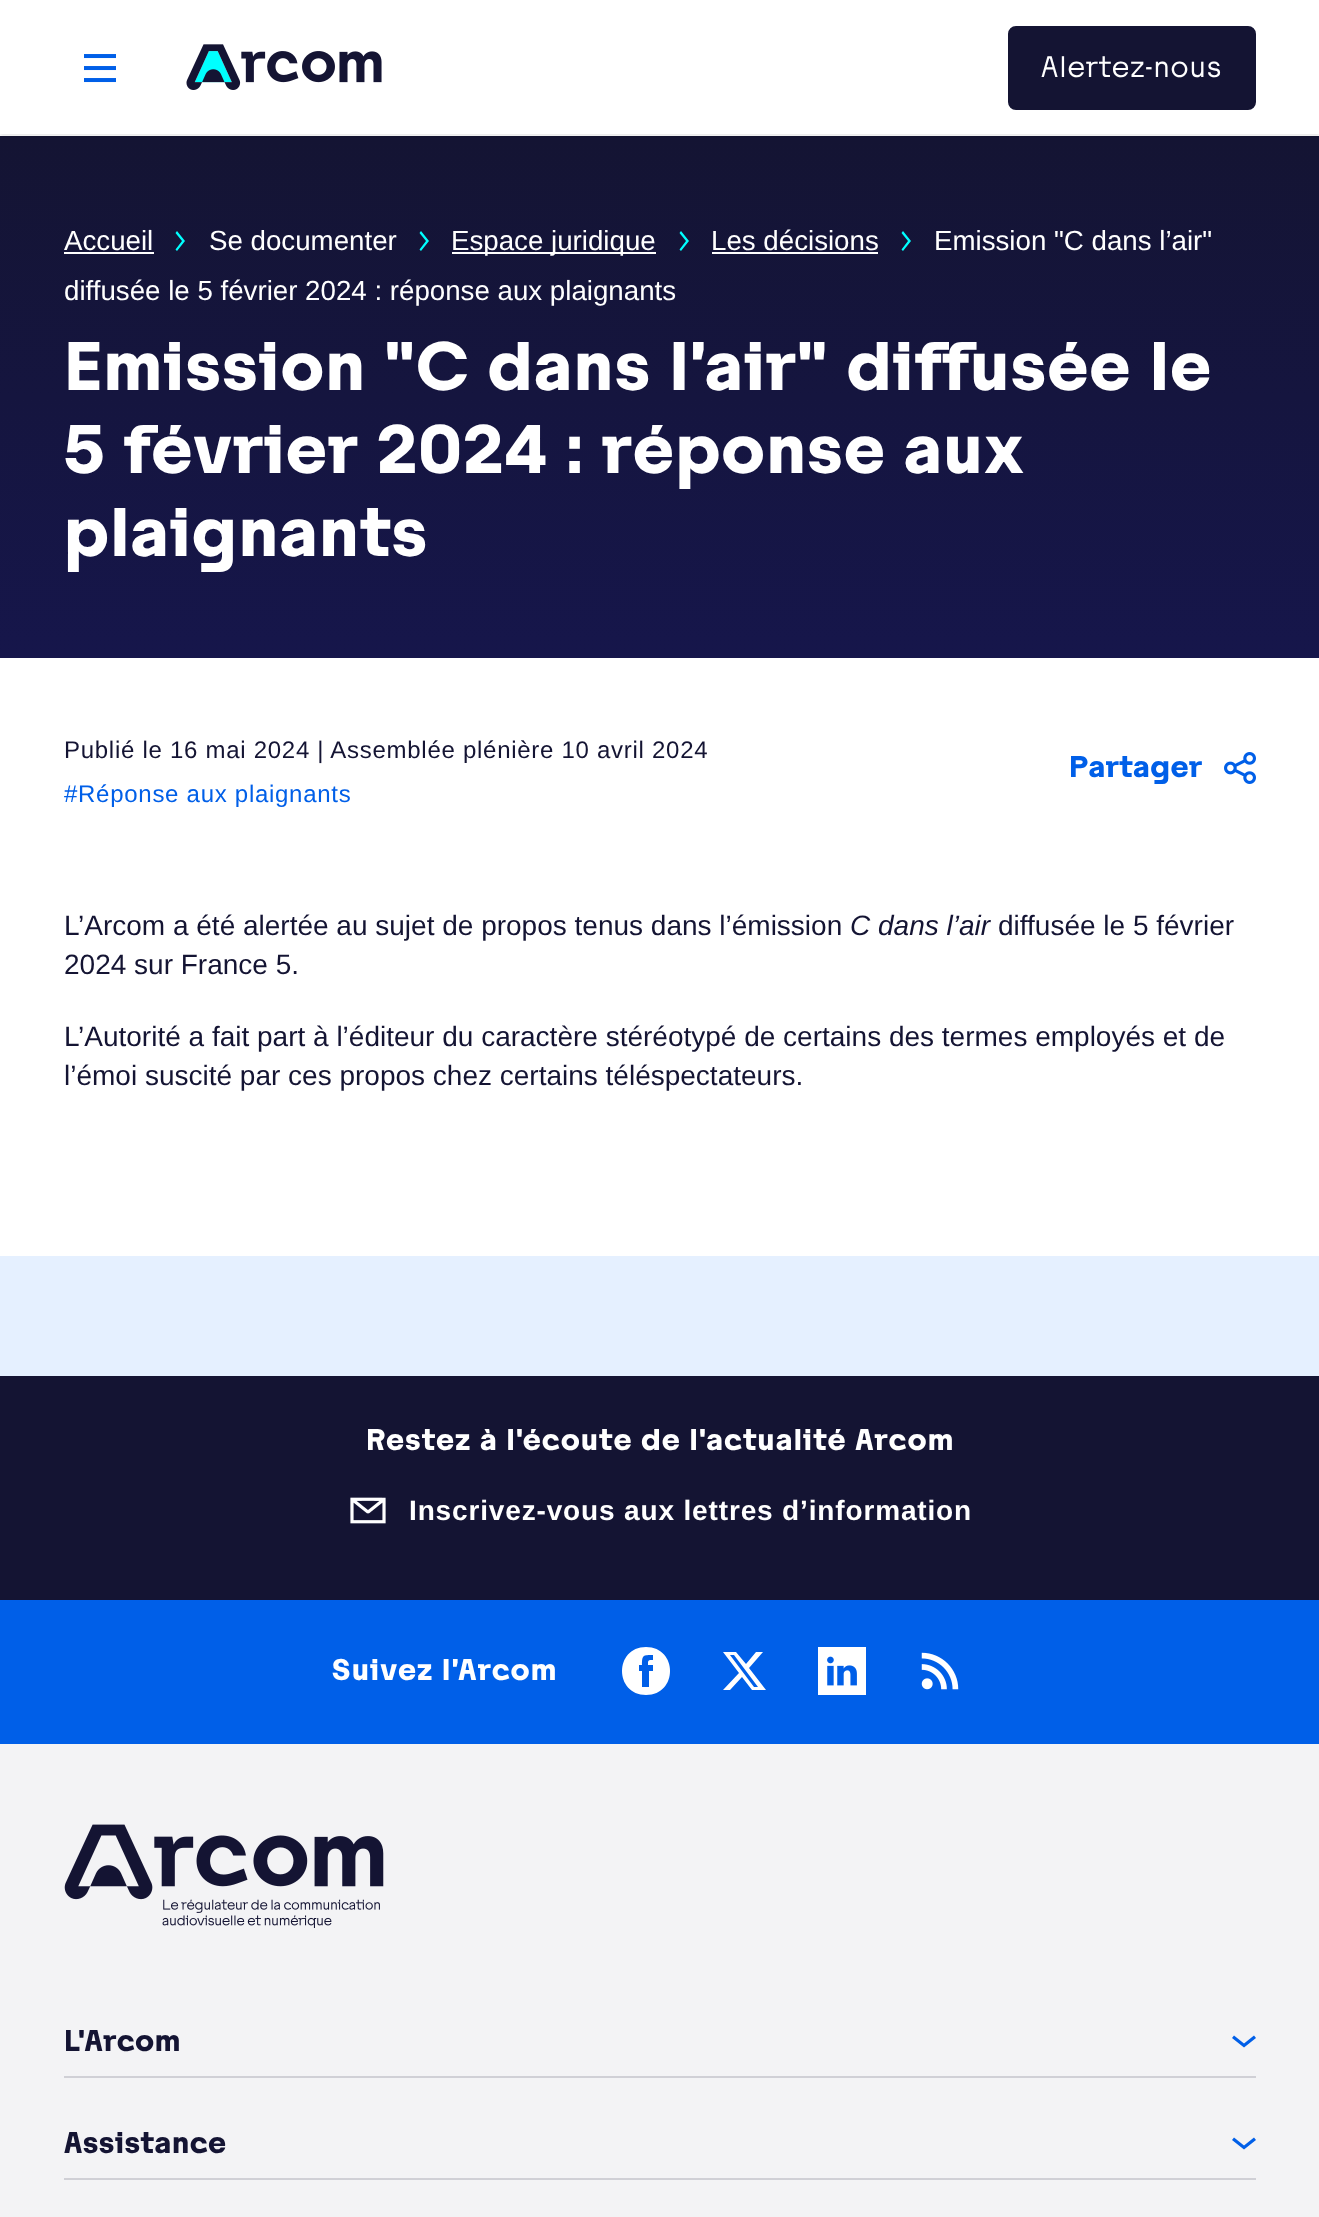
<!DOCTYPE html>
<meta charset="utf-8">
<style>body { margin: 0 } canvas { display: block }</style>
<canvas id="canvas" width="1319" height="2217"></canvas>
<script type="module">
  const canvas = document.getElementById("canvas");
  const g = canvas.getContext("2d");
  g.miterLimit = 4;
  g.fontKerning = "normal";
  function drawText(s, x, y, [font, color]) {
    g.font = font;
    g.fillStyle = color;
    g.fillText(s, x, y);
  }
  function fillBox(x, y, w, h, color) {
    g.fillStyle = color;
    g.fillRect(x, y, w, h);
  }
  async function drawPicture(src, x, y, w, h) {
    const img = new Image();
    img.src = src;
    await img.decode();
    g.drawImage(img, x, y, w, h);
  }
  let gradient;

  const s1 = ["27.7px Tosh", "#FFFFFF"];
  const s2 = ["27.7px Liberation Sans", "#FFFFFF"];
  const s3 = ["bold 64px Tosh", "#FFFFFF"];
  const s4 = ["24px Liberation Sans", "#141433"];
  const s5 = ["24px Liberation Sans", "#005FE8"];
  const s6 = ["bold 28px Tosh", "#005FE8"];
  const s7 = ["28px Liberation Sans", "#141433"];
  const s8 = ["italic 28px Liberation Sans", "#141433"];
  const s9 = ["bold 28px Tosh", "#FFFFFF"];
  const s10 = ["bold 28px Liberation Sans", "#FFFFFF"];
  const s11 = ["bold 28px Tosh", "#141433"];

  fillBox(0, 0, 1319, 2217, "#FFFFFF");
  gradient = g.createLinearGradient(660, 136, 660, 658);
  gradient.addColorStop(0, "#141433");
  gradient.addColorStop(1, "#16164B");
  g.fillStyle = gradient;
  g.fillRect(0, 136, 1319, 522);
  g.save();
  g.beginPath();
  g.rect(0, 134, 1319, 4);
  g.clip();
  g.fillStyle = "rgba(0, 0, 0, 0.1)";
  g.filter = "blur(2px)";
  g.beginPath();
  g.rect(0, 2, 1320, 134);
  g.fill();
  g.filter = "none";
  g.restore();
  await drawPicture("pic1.png", 84, 54, 32, 29);
  await drawPicture("pic2.png", 186, 44, 196, 46);
  g.fillStyle = "#141433";
  g.beginPath();
  g.roundRect(1009, 27, 246, 82, 7);
  g.fill();
  g.strokeStyle = "#141433";
  g.lineWidth = 2;
  g.stroke();
  g.letterSpacing = "1.4px";
  drawText("Alertez-nous", 1041, 77, s1);
  g.letterSpacing = "0px";
  drawText("Accueil", 64, 250, s2);
  fillBox(64, 252, 90, 2, "#FFFFFF");
  g.fillStyle = "#00FFFF";
  g.beginPath();
  g.moveTo(182, 241);
  g.lineTo(175.5, 233);
  g.lineTo(177, 231);
  g.lineTo(185, 241);
  g.lineTo(177, 251);
  g.lineTo(175.5, 249.5);
  g.closePath();
  g.fill();
  drawText("Se documenter", 209, 250, s2);
  g.fillStyle = "#00FFFF";
  g.beginPath();
  g.moveTo(426, 241);
  g.lineTo(419.5, 233);
  g.lineTo(421, 231);
  g.lineTo(429, 241);
  g.lineTo(421, 251);
  g.lineTo(419.5, 249.5);
  g.closePath();
  g.fill();
  fillBox(452, 252, 204, 2, "#FFFFFF");
  drawText("Espace juridique", 451, 250, s2);
  g.fillStyle = "#00FFFF";
  g.beginPath();
  g.moveTo(686, 241);
  g.lineTo(679.5, 233);
  g.lineTo(681, 231);
  g.lineTo(689, 241);
  g.lineTo(681, 251);
  g.lineTo(679.5, 249.5);
  g.closePath();
  g.fill();
  drawText("Les décisions", 711, 250, s2);
  fillBox(712, 252, 166, 2, "#FFFFFF");
  g.fillStyle = "#00FFFF";
  g.beginPath();
  g.moveTo(908, 241);
  g.lineTo(901.5, 233);
  g.lineTo(903, 231);
  g.lineTo(911, 241);
  g.lineTo(903, 251);
  g.lineTo(901.5, 249.5);
  g.closePath();
  g.fill();
  drawText("Emission \"C dans l’air\"", 934, 250, s2);
  drawText("diffusée le 5 février 2024 : réponse aux plaignants", 64, 300, s2);
  g.letterSpacing = "1.9px";
  drawText("Emission \"C dans l’air\" diffusée le", 64, 390, s3);
  drawText("5 février 2024 : réponse aux", 64, 473, s3);
  drawText("plaignants", 64, 556, s3);
  g.letterSpacing = "0.72px";
  drawText("Publié le 16 mai 2024 | Assemblée plénière 10 avril 2024", 64, 758, s4);
  drawText("#Réponse aux plaignants", 64, 802, s5);
  g.letterSpacing = "0.85px";
  drawText("Partager", 1069, 777, s6);
  await drawPicture("pic3.png", 1224, 752, 32, 32);
  g.letterSpacing = "0px";
  drawText("L’Arcom a été alertée au sujet de propos tenus dans l’émission", 64, 935, s7);
  drawText("C dans l’air", 850, 935, s8);
  drawText("diffusée le 5 février", 998, 935, s7);
  drawText("2024 sur France 5.", 64, 974, s7);
  drawText("L’Autorité a fait part à l’éditeur du caractère stéréotypé de certains des termes employés et de", 64, 1046, s7);
  drawText("l’émoi suscité par ces propos chez certains téléspectateurs.", 64, 1085, s7);
  fillBox(0, 1256, 1319, 120, "#E5F0FF");
  fillBox(0, 1376, 1319, 224, "#141433");
  g.letterSpacing = "1.4px";
  drawText("Restez à l'écoute de l'actualité Arcom", 366, 1450, s9);
  await drawPicture("pic4.png", 350, 1497, 36, 27);
  g.letterSpacing = "0.85px";
  drawText("Inscrivez-vous aux lettres d’information", 409, 1520, s10);
  fillBox(0, 1600, 1319, 144, "#005FE8");
  g.letterSpacing = "1.4px";
  drawText("Suivez l’Arcom", 332, 1680, s9);
  g.beginPath();
  g.moveTo(646, 1647);
  g.bezierCurveTo(614, 1647, 614, 1695, 646, 1695);
  g.bezierCurveTo(678, 1695, 678, 1647, 646, 1647);
  g.closePath();
  g.moveTo(653, 1660);
  g.bezierCurveTo(648, 1660, 648, 1660, 648, 1665);
  g.lineTo(653, 1665);
  g.lineTo(653, 1671);
  g.lineTo(649, 1671);
  g.lineTo(649, 1687);
  g.lineTo(642, 1687);
  g.lineTo(642, 1671);
  g.lineTo(639, 1671);
  g.lineTo(639, 1665);
  g.lineTo(642, 1665);
  g.bezierCurveTo(642, 1655, 643, 1655, 653, 1655);
  g.closePath();
  g.fill();
  g.beginPath();
  g.moveTo(756, 1652);
  g.lineTo(763, 1652);
  g.lineTo(749, 1668);
  g.lineTo(766, 1690);
  g.lineTo(752, 1690);
  g.lineTo(742, 1677);
  g.lineTo(730, 1690);
  g.lineTo(723, 1690);
  g.lineTo(739, 1673);
  g.lineTo(723, 1652);
  g.lineTo(736, 1652);
  g.lineTo(746, 1664);
  g.closePath();
  g.moveTo(754, 1687);
  g.lineTo(758, 1687);
  g.lineTo(734, 1655);
  g.lineTo(730, 1655);
  g.closePath();
  g.fill();
  await drawPicture("pic5.png", 818, 1647, 48, 48);
  await drawPicture("pic6.png", 921, 1652, 38, 38);
  fillBox(0, 1744, 1319, 473, "#F3F3F5");
  await drawPicture("pic7.png", 64, 1824, 320, 104);
  fillBox(64, 2076, 1192, 2, "#D0D0D6");
  g.letterSpacing = "0.85px";
  drawText("L'Arcom", 64, 2051, s11);
  g.fillStyle = "#005FE8";
  g.beginPath();
  g.moveTo(1244, 2043.5);
  g.lineTo(1254, 2035.5);
  g.lineTo(1256, 2038);
  g.lineTo(1244, 2047.5);
  g.lineTo(1232, 2038);
  g.lineTo(1234, 2035.5);
  g.closePath();
  g.fill();
  fillBox(64, 2178, 1192, 2, "#D0D0D6");
  drawText("Assistance", 64, 2153, s11);
  g.fillStyle = "#005FE8";
  g.beginPath();
  g.moveTo(1244, 2145.5);
  g.lineTo(1254, 2137.5);
  g.lineTo(1256, 2140);
  g.lineTo(1244, 2149.5);
  g.lineTo(1232, 2140);
  g.lineTo(1234, 2137.5);
  g.closePath();
  g.fill();
</script>
